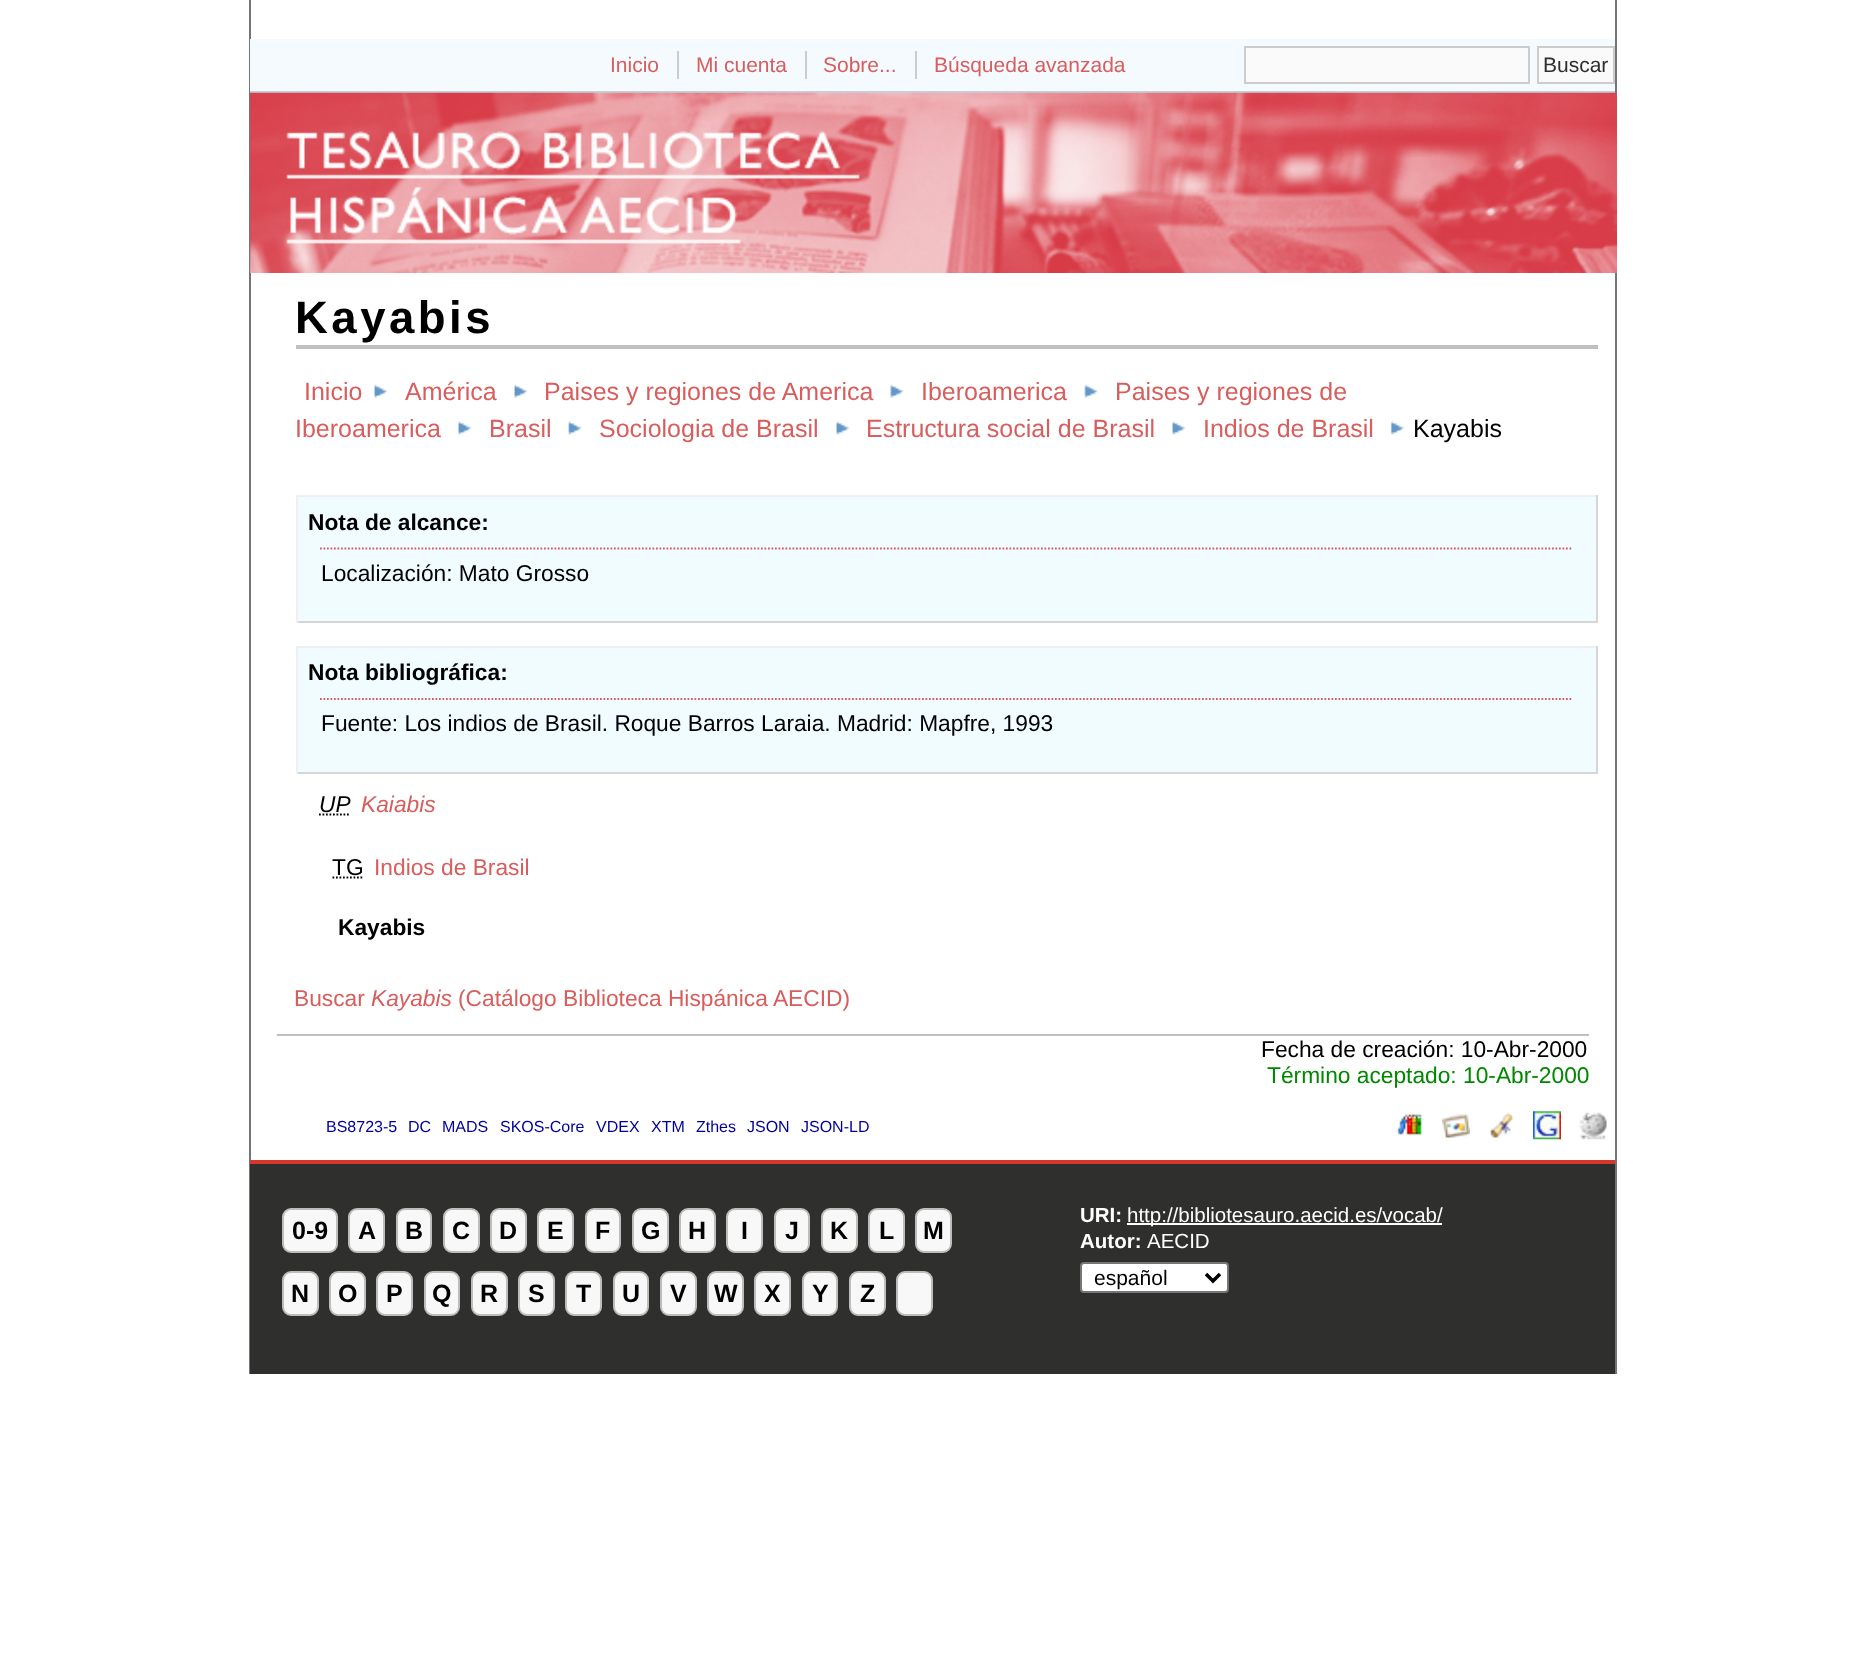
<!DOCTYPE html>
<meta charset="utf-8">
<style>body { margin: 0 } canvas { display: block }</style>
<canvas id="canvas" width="1865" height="1661"></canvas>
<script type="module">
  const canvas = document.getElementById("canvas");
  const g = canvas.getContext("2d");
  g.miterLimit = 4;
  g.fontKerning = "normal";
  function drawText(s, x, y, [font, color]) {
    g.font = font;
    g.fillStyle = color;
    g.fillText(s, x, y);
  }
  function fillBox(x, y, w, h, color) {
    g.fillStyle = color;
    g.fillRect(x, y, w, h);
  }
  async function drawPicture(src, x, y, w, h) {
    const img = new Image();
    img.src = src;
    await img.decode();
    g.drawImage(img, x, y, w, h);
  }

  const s1 = ["21px Liberation Sans", "#D85D5D"];
  const s2 = ["21px Liberation Sans", "#2F2F2E"];
  const s3 = ["bold 45.5px Liberation Sans", "#000000"];
  const s4 = ["25px Liberation Sans", "#D85D5D"];
  const s5 = ["25px Liberation Sans", "#000000"];
  const s6 = ["bold 22.75px Liberation Sans", "#000000"];
  const s7 = ["22.75px Liberation Sans", "#000000"];
  const s8 = ["italic 22.75px Liberation Sans", "#000000"];
  const s9 = ["italic 22.75px Liberation Sans", "#D85D5D"];
  const s10 = ["22.75px Liberation Sans", "#D85D5D"];
  const s11 = ["22.75px Liberation Sans", "#008800"];
  const s12 = ["16px Liberation Sans", "#000099"];
  const s13 = ["bold 25px Liberation Sans", "#000000"];
  const s14 = ["bold 20.5px Liberation Sans", "#FFFFFF"];
  const s15 = ["20.5px Liberation Sans", "#FFFFFF"];
  const s16 = ["21px Liberation Sans", "#000000"];

  fillBox(0, 0, 1865, 1661, "#FFFFFF");
  fillBox(1615, 0, 2, 1374, "#757575");
  fillBox(249, 0, 2, 1374, "#757575");
  fillBox(250, 39, 1365, 52, "#F4FAFE");
  fillBox(250, 91, 1365, 2, "#C0D1DB");
  drawText("Inicio", 610, 72, s1);
  drawText("Mi cuenta", 696, 72, s1);
  fillBox(677, 51, 2, 28, "#CCCCCC");
  drawText("Sobre...", 823, 72, s1);
  fillBox(805, 51, 2, 28, "#CCCCCC");
  drawText("Búsqueda avanzada", 934, 72, s1);
  fillBox(915, 51, 2, 28, "#CCCCCC");
  g.fillStyle = "#FAFAFA";
  g.beginPath();
  g.rect(1245, 47, 284, 36);
  g.fill();
  g.strokeStyle = "#CCCCCC";
  g.lineWidth = 2;
  g.stroke();
  g.beginPath();
  g.rect(1538, 47, 76, 36);
  g.fill();
  g.stroke();
  drawText("Buscar", 1543, 72, s2);
  await drawPicture("pic1.png", 250, 92, 1367, 181);
  fillBox(296, 345, 1302, 4, "#C0C0C0");
  g.letterSpacing = "3.5px";
  drawText("Kayabis", 295, 333, s3);
  g.letterSpacing = "0px";
  drawText("Inicio", 304, 400, s4);
  await drawPicture("pic2.png", 374, 384, 14, 14);
  drawText("América", 405, 400, s4);
  await drawPicture("pic3.png", 514, 384, 14, 14);
  drawText("Paises y regiones de America", 544, 400, s4);
  await drawPicture("pic4.png", 890, 384, 14, 14);
  drawText("Iberoamerica", 921, 400, s4);
  await drawPicture("pic5.png", 1084, 384, 14, 14);
  drawText("Paises y regiones de", 1115, 400, s4);
  drawText("Iberoamerica", 295, 437, s4);
  await drawPicture("pic6.png", 458, 421, 14, 14);
  drawText("Brasil", 489, 437, s4);
  await drawPicture("pic7.png", 568, 421, 14, 14);
  drawText("Sociologia de Brasil", 599, 437, s4);
  await drawPicture("pic6.png", 836, 421, 14, 14);
  drawText("Estructura social de Brasil", 866, 437, s4);
  await drawPicture("pic6.png", 1172, 421, 14, 14);
  drawText("Indios de Brasil", 1203, 437, s4);
  await drawPicture("pic8.png", 1390, 421, 14, 14);
  drawText("Kayabis", 1413, 437, s5);
  fillBox(298, 497, 1298, 124, "#F0FCFF");
  fillBox(296, 495, 1302, 2, "#F0F0F0");
  fillBox(1596, 495, 2, 128, "#D6D6D6");
  fillBox(296, 621, 1302, 2, "#D6D6D6");
  fillBox(296, 495, 2, 128, "#F0F0F0");
  drawText("Nota de alcance:", 308, 530, s6);
  g.beginPath();
  g.moveTo(320, 548.5);
  g.lineTo(1571.5, 548.5);
  g.strokeStyle = "#D85D5D";
  g.lineWidth = 1.8;
  g.setLineDash([1.75, 1.75]);
  g.stroke();
  drawText("Localización: Mato Grosso", 321, 581, s7);
  fillBox(298, 648, 1298, 124, "#F0FCFF");
  fillBox(296, 646, 1302, 2, "#F0F0F0");
  fillBox(1596, 646, 2, 128, "#D6D6D6");
  fillBox(296, 772, 1302, 2, "#D6D6D6");
  fillBox(296, 646, 2, 128, "#F0F0F0");
  drawText("Nota bibliográfica:", 308, 680, s6);
  g.beginPath();
  g.moveTo(320, 699);
  g.lineTo(1571.5, 699);
  g.stroke();
  drawText("Fuente: Los indios de Brasil. Roque Barros Laraia. Madrid: Mapfre, 1993", 321, 731, s7);
  drawText("UP", 319, 812, s8);
  g.beginPath();
  g.moveTo(319, 814.5);
  g.lineTo(350.5, 814.5);
  g.strokeStyle = "#000000";
  g.stroke();
  drawText("Kaiabis", 361, 812, s9);
  drawText("TG", 332, 875, s7);
  g.beginPath();
  g.moveTo(332.5, 877.5);
  g.lineTo(364, 877.5);
  g.stroke();
  drawText("Indios de Brasil", 374, 875, s10);
  drawText("Kayabis", 338, 935, s6);
  drawText("Buscar", 294, 1006, s10);
  drawText("Kayabis", 371, 1006, s9);
  drawText("(Catálogo Biblioteca Hispánica AECID)", 458, 1006, s10);
  fillBox(277, 1034, 1312, 2, "#C0C0C0");
  drawText("Fecha de creación: 10-Abr-2000", 1261, 1057, s7);
  drawText("Término aceptado: 10-Abr-2000", 1267, 1083, s11);
  drawText("BS8723-5", 326, 1132, s12);
  drawText("DC", 408, 1132, s12);
  drawText("MADS", 442, 1132, s12);
  drawText("SKOS-Core", 500, 1132, s12);
  drawText("VDEX", 596, 1132, s12);
  drawText("XTM", 651, 1132, s12);
  drawText("Zthes", 696, 1132, s12);
  drawText("JSON", 747, 1132, s12);
  drawText("JSON-LD", 801, 1132, s12);
  await drawPicture("pic9.png", 1396, 1114, 26, 22);
  await drawPicture("pic10.png", 1442, 1114, 28, 24);
  await drawPicture("pic11.png", 1489, 1112, 25, 26);
  await drawPicture("pic12.png", 1533, 1111, 28, 29);
  await drawPicture("pic13.png", 1579, 1111, 28, 29);
  fillBox(250, 1164, 1365, 210, "#2F2F2E");
  fillBox(250, 1160, 1365, 4, "#D7372A");
  g.fillStyle = "#F8F8F8";
  g.beginPath();
  g.roundRect(283, 1209, 54, 43, 8);
  g.fill();
  g.strokeStyle = "#BDBDBD";
  g.lineWidth = 2;
  g.setLineDash([]);
  g.stroke();
  drawText("0-9", 292, 1239, s13);
  g.fillStyle = "#F8F8F8";
  g.beginPath();
  g.roundRect(349, 1209, 35, 43, 8);
  g.fill();
  g.stroke();
  drawText("A", 358, 1239, s13);
  g.fillStyle = "#F8F8F8";
  g.beginPath();
  g.roundRect(397, 1209, 34, 43, 8);
  g.fill();
  g.stroke();
  drawText("B", 405, 1239, s13);
  g.fillStyle = "#F8F8F8";
  g.beginPath();
  g.roundRect(444, 1209, 35, 43, 8);
  g.fill();
  g.stroke();
  drawText("C", 452, 1239, s13);
  g.fillStyle = "#F8F8F8";
  g.beginPath();
  g.roundRect(491, 1209, 35, 43, 8);
  g.fill();
  g.stroke();
  drawText("D", 499, 1239, s13);
  g.fillStyle = "#F8F8F8";
  g.beginPath();
  g.roundRect(538, 1209, 35, 43, 8);
  g.fill();
  g.stroke();
  drawText("E", 547, 1239, s13);
  g.fillStyle = "#F8F8F8";
  g.beginPath();
  g.roundRect(586, 1209, 34, 43, 8);
  g.fill();
  g.stroke();
  drawText("F", 595, 1239, s13);
  g.fillStyle = "#F8F8F8";
  g.beginPath();
  g.roundRect(633, 1209, 35, 43, 8);
  g.fill();
  g.stroke();
  drawText("G", 641, 1239, s13);
  g.fillStyle = "#F8F8F8";
  g.beginPath();
  g.roundRect(680, 1209, 35, 43, 8);
  g.fill();
  g.stroke();
  drawText("H", 688, 1239, s13);
  g.fillStyle = "#F8F8F8";
  g.beginPath();
  g.roundRect(727, 1209, 35, 43, 8);
  g.fill();
  g.stroke();
  drawText("I", 741, 1239, s13);
  g.fillStyle = "#F8F8F8";
  g.beginPath();
  g.roundRect(775, 1209, 34, 43, 8);
  g.fill();
  g.stroke();
  drawText("J", 785, 1239, s13);
  g.fillStyle = "#F8F8F8";
  g.beginPath();
  g.roundRect(822, 1209, 35, 43, 8);
  g.fill();
  g.stroke();
  drawText("K", 830, 1239, s13);
  g.fillStyle = "#F8F8F8";
  g.beginPath();
  g.roundRect(869, 1209, 35, 43, 8);
  g.fill();
  g.stroke();
  drawText("L", 879, 1239, s13);
  g.fillStyle = "#F8F8F8";
  g.beginPath();
  g.roundRect(916, 1209, 35, 43, 8);
  g.fill();
  g.stroke();
  drawText("M", 923, 1239, s13);
  g.fillStyle = "#F8F8F8";
  g.beginPath();
  g.roundRect(283, 1272, 35, 43, 8);
  g.fill();
  g.stroke();
  drawText("N", 291, 1302, s13);
  g.fillStyle = "#F8F8F8";
  g.beginPath();
  g.roundRect(330, 1272, 35, 43, 8);
  g.fill();
  g.stroke();
  drawText("O", 338, 1302, s13);
  g.fillStyle = "#F8F8F8";
  g.beginPath();
  g.roundRect(377, 1272, 35, 43, 8);
  g.fill();
  g.stroke();
  drawText("P", 386, 1302, s13);
  g.fillStyle = "#F8F8F8";
  g.beginPath();
  g.roundRect(425, 1272, 34, 43, 8);
  g.fill();
  g.stroke();
  drawText("Q", 432, 1302, s13);
  g.fillStyle = "#F8F8F8";
  g.beginPath();
  g.roundRect(472, 1272, 35, 43, 8);
  g.fill();
  g.stroke();
  drawText("R", 480, 1302, s13);
  g.fillStyle = "#F8F8F8";
  g.beginPath();
  g.roundRect(519, 1272, 35, 43, 8);
  g.fill();
  g.stroke();
  drawText("S", 528, 1302, s13);
  g.fillStyle = "#F8F8F8";
  g.beginPath();
  g.roundRect(566, 1272, 35, 43, 8);
  g.fill();
  g.stroke();
  drawText("T", 576, 1302, s13);
  g.fillStyle = "#F8F8F8";
  g.beginPath();
  g.roundRect(614, 1272, 34, 43, 8);
  g.fill();
  g.stroke();
  drawText("U", 622, 1302, s13);
  g.fillStyle = "#F8F8F8";
  g.beginPath();
  g.roundRect(661, 1272, 35, 43, 8);
  g.fill();
  g.stroke();
  drawText("V", 670, 1302, s13);
  g.fillStyle = "#F8F8F8";
  g.beginPath();
  g.roundRect(708, 1272, 35, 43, 8);
  g.fill();
  g.stroke();
  drawText("W", 714, 1302, s13);
  g.fillStyle = "#F8F8F8";
  g.beginPath();
  g.roundRect(755, 1272, 35, 43, 8);
  g.fill();
  g.stroke();
  drawText("X", 764, 1302, s13);
  g.fillStyle = "#F8F8F8";
  g.beginPath();
  g.roundRect(803, 1272, 34, 43, 8);
  g.fill();
  g.stroke();
  drawText("Y", 812, 1302, s13);
  g.fillStyle = "#F8F8F8";
  g.beginPath();
  g.roundRect(850, 1272, 35, 43, 8);
  g.fill();
  g.stroke();
  drawText("Z", 860, 1302, s13);
  g.fillStyle = "#F8F8F8";
  g.beginPath();
  g.roundRect(897, 1272, 35, 43, 8);
  g.fill();
  g.stroke();
  drawText("URI:", 1080, 1222, s14);
  fillBox(1127, 1223, 315, 2, "#FFFFFF");
  drawText("http://bibliotesauro.aecid.es/vocab/", 1127, 1222, s15);
  drawText("Autor:", 1080, 1248, s14);
  drawText("AECID", 1147, 1248, s15);
  g.beginPath();
  g.roundRect(1081, 1263, 147, 29, 3);
  g.fill();
  g.strokeStyle = "#767676";
  g.stroke();
  g.beginPath();
  g.moveTo(1206, 1274);
  g.lineTo(1213, 1281);
  g.lineTo(1220, 1274);
  g.strokeStyle = "#000000";
  g.lineWidth = 3.5;
  g.stroke();
  drawText("español", 1094, 1285, s16);
</script>
